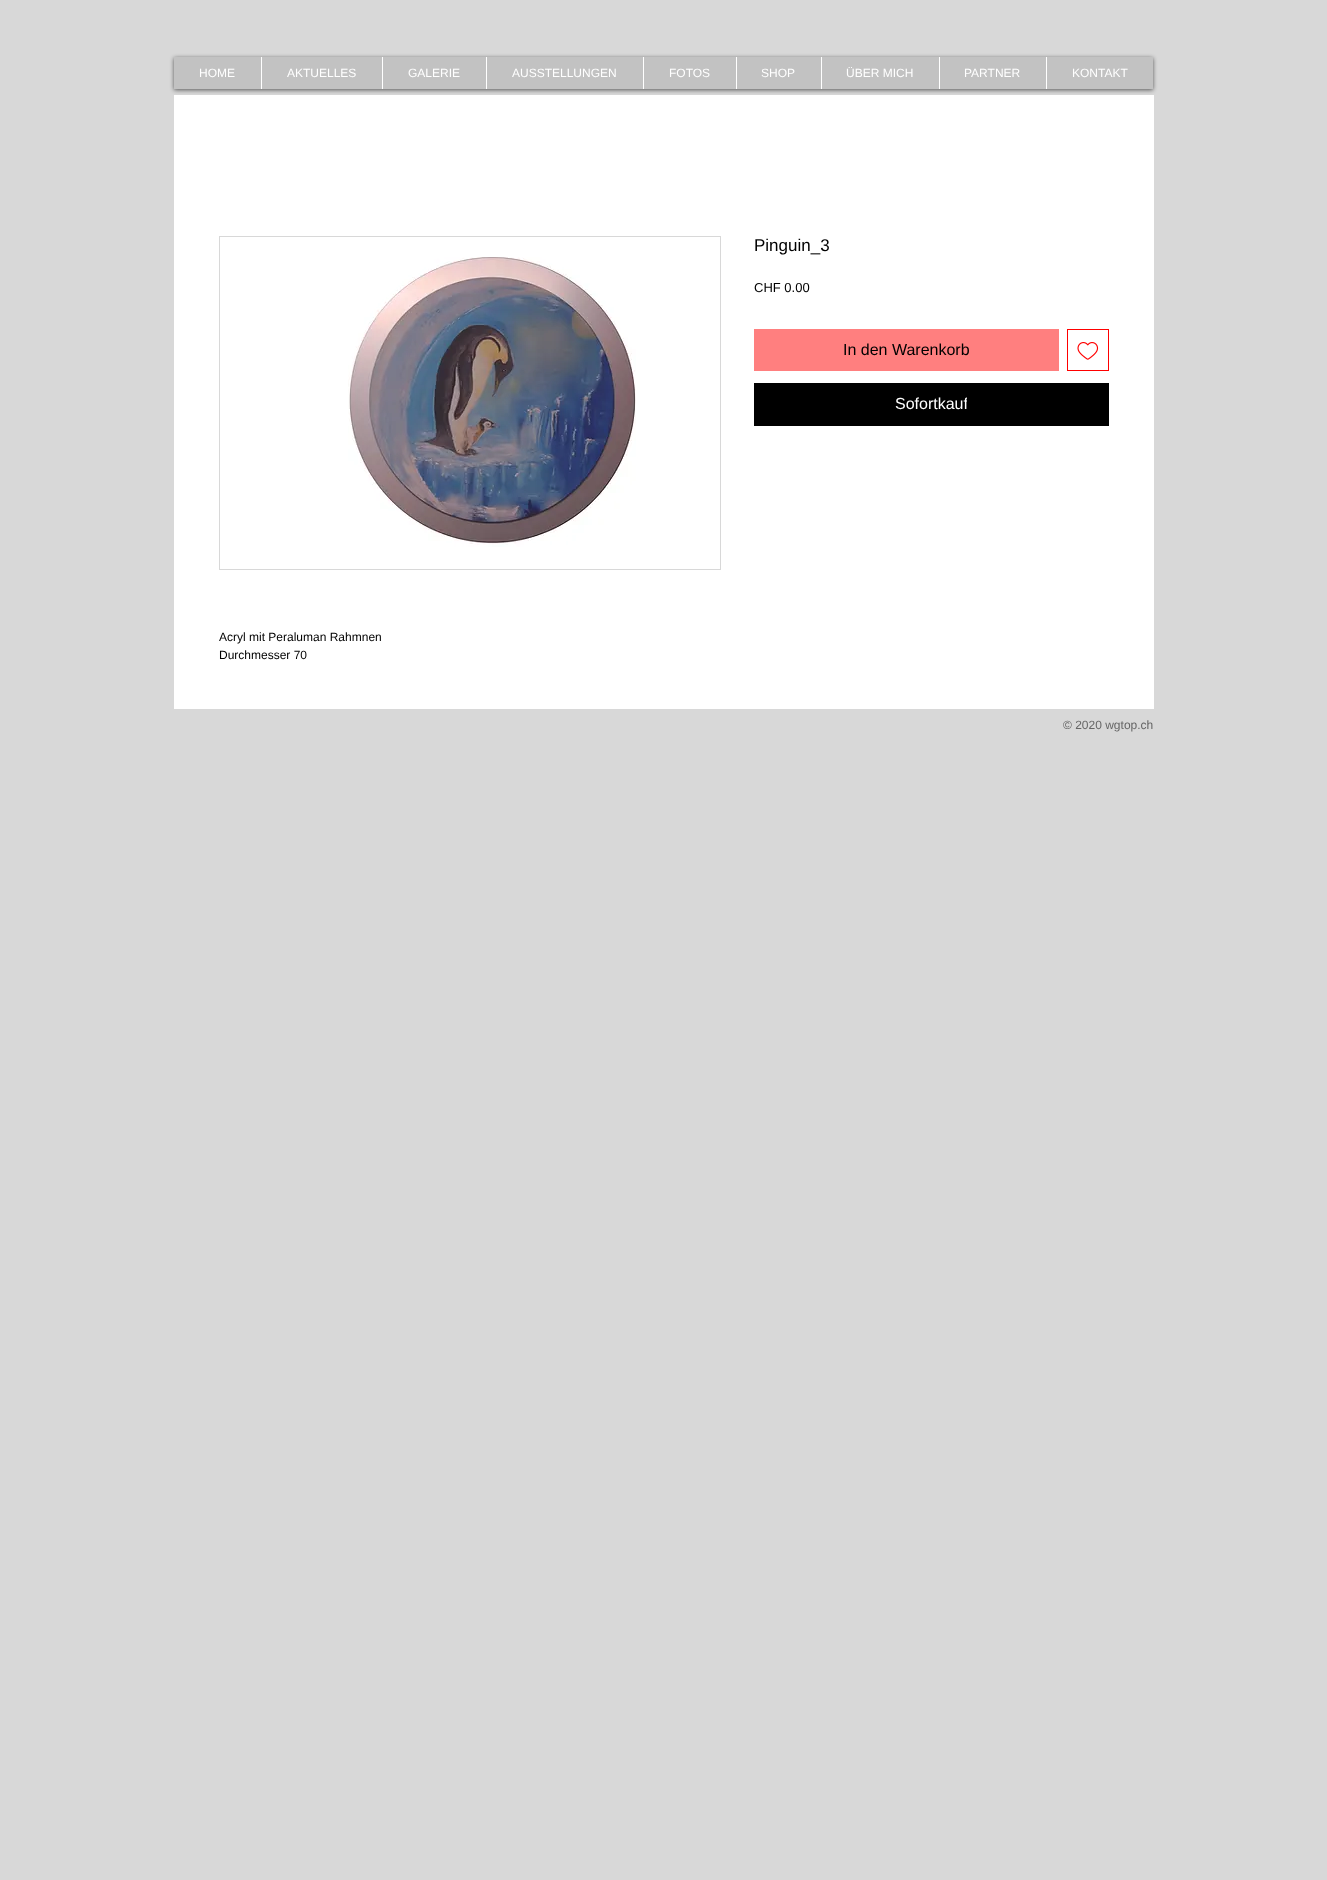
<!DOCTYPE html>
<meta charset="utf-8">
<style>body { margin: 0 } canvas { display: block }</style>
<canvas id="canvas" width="1327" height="1880"></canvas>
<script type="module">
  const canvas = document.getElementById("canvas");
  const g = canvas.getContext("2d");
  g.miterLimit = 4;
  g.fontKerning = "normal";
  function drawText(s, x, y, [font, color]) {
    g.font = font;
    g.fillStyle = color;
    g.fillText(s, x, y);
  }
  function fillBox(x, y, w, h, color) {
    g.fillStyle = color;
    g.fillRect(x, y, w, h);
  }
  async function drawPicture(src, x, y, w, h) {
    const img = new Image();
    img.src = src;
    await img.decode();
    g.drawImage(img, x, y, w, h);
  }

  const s1 = ["12px Liberation Sans", "#FFFFFF"];
  const s2 = ["17px Liberation Sans", "#000000"];
  const s3 = ["13px Liberation Sans", "#000000"];
  const s4 = ["16px Liberation Sans", "#000000"];
  const s5 = ["16px Liberation Sans", "#FFFFFF"];
  const s6 = ["12px Liberation Sans", "#000000"];
  const s7 = ["12px Liberation Sans", "#656565"];

  fillBox(0, 0, 1327, 1880, "#D8D8D8");
  fillBox(174, 95, 980, 614, "#FFFFFF");
  g.fillStyle = "rgba(0, 0, 0, 0.6)";
  g.filter = "blur(2px)";
  g.beginPath();
  g.rect(174, 58, 979, 32);
  g.fill();
  g.filter = "none";
  fillBox(174, 57, 979, 32, "#C2C2C2");
  drawText("HOME", 199, 77, s1);
  fillBox(261, 57, 1, 32, "#FFFFFF");
  drawText("AKTUELLES", 287, 77, s1);
  fillBox(382, 57, 1, 32, "#FFFFFF");
  drawText("GALERIE", 408, 77, s1);
  fillBox(486, 57, 1, 32, "#FFFFFF");
  drawText("AUSSTELLUNGEN", 512, 77, s1);
  fillBox(643, 57, 1, 32, "#FFFFFF");
  drawText("FOTOS", 669, 77, s1);
  fillBox(736, 57, 1, 32, "#FFFFFF");
  drawText("SHOP", 761, 77, s1);
  fillBox(821, 57, 1, 32, "#FFFFFF");
  drawText("ÜBER MICH", 846, 77, s1);
  fillBox(939, 57, 1, 32, "#FFFFFF");
  drawText("PARTNER", 964, 77, s1);
  fillBox(1046, 57, 1, 32, "#FFFFFF");
  drawText("KONTAKT", 1072, 77, s1);
  drawText("Pinguin_3", 754, 251, s2);
  drawText("CHF 0.00", 754, 292, s3);
  fillBox(754, 329, 305, 42, "#FF7F7F");
  drawText("In den Warenkorb", 843, 355, s4);
  g.strokeStyle = "#FF0000";
  g.strokeRect(1067.5, 329.5, 41, 41);
  await drawPicture("pic1.png", 1077, 342, 22, 18);
  fillBox(754, 383, 355, 43, "#000000");
  g.save();
  g.beginPath();
  g.rect(895, 393, 72, 23);
  g.clip();
  drawText("Sofortkauf", 895, 409, s5);
  g.restore();
  g.strokeStyle = "#D8D8D8";
  g.strokeRect(219.5, 236.5, 501, 333);
  await drawPicture("pic2.png", 348, 257, 288, 290);
  drawText("Acryl mit Peraluman Rahmnen", 219, 641, s6);
  drawText("Durchmesser 70", 219, 659, s6);
  drawText("© 2020 wgtop.ch", 1063, 729, s7);
</script>
